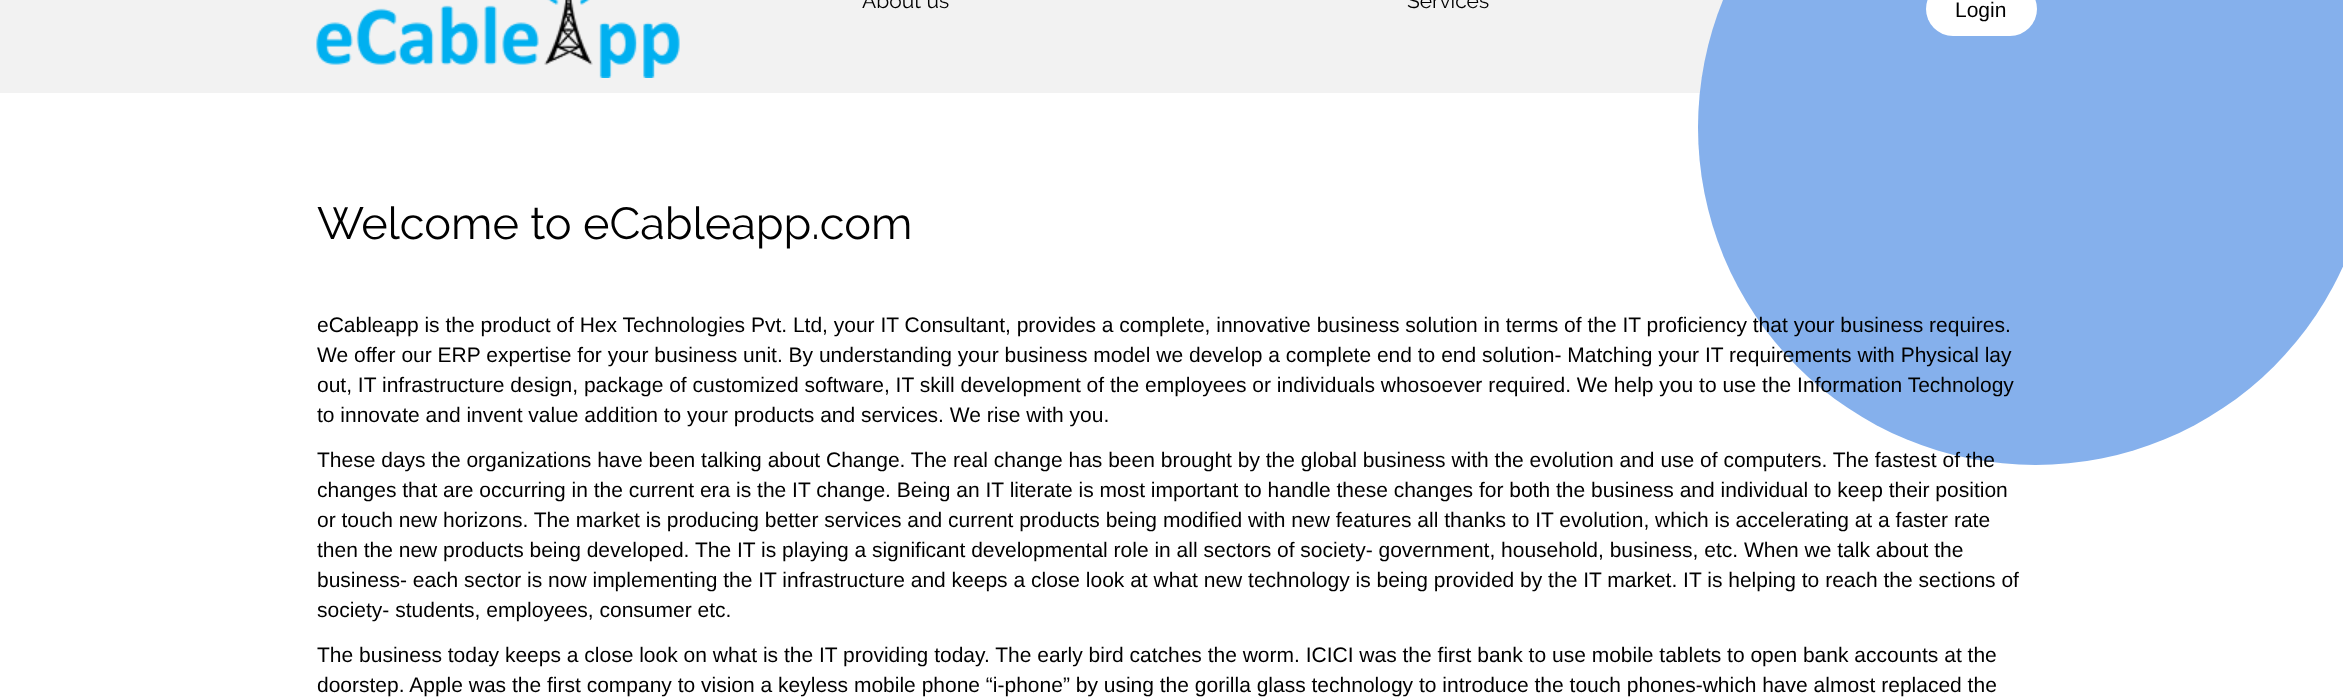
<!DOCTYPE html>
<meta charset="utf-8">
<style>body { margin: 0 } canvas { display: block }</style>
<canvas id="canvas" width="2343" height="700"></canvas>
<script type="module">
  const canvas = document.getElementById("canvas");
  const g = canvas.getContext("2d");
  g.miterLimit = 4;
  g.fontKerning = "normal";
  function drawText(s, x, y, [font, color]) {
    g.font = font;
    g.fillStyle = color;
    g.fillText(s, x, y);
  }
  function fillBox(x, y, w, h, color) {
    g.fillStyle = color;
    g.fillRect(x, y, w, h);
  }
  function fillRounded(x, y, w, h, r, color) {
    g.fillStyle = color;
    g.beginPath();
    g.roundRect(x, y, w, h, r);
    g.fill();
  }
  async function drawPicture(src, x, y, w, h) {
    const img = new Image();
    img.src = src;
    await img.decode();
    g.drawImage(img, x, y, w, h);
  }

  const s1 = ["21px Raleway", "#000000"];
  const s2 = ["21px Liberation Sans", "#000000"];
  const s3 = ["45px Raleway", "#000000"];

  fillBox(0, 0, 2343, 700, "#FFFFFF");
  fillBox(0, 0, 1723, 93, "#F2F2F2");
  await drawPicture("pic1.png", 316, 0, 364, 78);
  drawText("About us", 862, 8, s1);
  drawText("Services", 1407, 8, s1);
  g.fillStyle = "#85B0EC";
  g.beginPath();
  g.arc(2035.5, 127.5, 337.5, 0, Math.PI * 2);
  g.fill();
  fillRounded(1926, -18, 111, 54, 27, "#FFFFFF");
  drawText("Login", 1955, 17, s2);
  drawText("Welcome to eCableapp.com", 317, 239, s3);
  drawText("eCableapp is the product of Hex Technologies Pvt. Ltd, your IT Consultant, provides a complete, innovative business solution in terms of the IT proficiency that your business requires.", 317, 332, s2);
  drawText("We offer our ERP expertise for your business unit. By understanding your business model we develop a complete end to end solution- Matching your IT requirements with Physical lay", 317, 362, s2);
  drawText("out, IT infrastructure design, package of customized software, IT skill development of the employees or individuals whosoever required. We help you to use the Information Technology", 317, 392, s2);
  drawText("to innovate and invent value addition to your products and services. We rise with you.", 317, 422, s2);
  drawText("These days the organizations have been talking about Change. The real change has been brought by the global business with the evolution and use of computers. The fastest of the", 317, 467, s2);
  drawText("changes that are occurring in the current era is the IT change. Being an IT literate is most important to handle these changes for both the business and individual to keep their position", 317, 497, s2);
  drawText("or touch new horizons. The market is producing better services and current products being modified with new features all thanks to IT evolution, which is accelerating at a faster rate", 317, 527, s2);
  drawText("then the new products being developed. The IT is playing a significant developmental role in all sectors of society- government, household, business, etc. When we talk about the", 317, 557, s2);
  drawText("business- each sector is now implementing the IT infrastructure and keeps a close look at what new technology is being provided by the IT market. IT is helping to reach the sections of", 317, 587, s2);
  drawText("society- students, employees, consumer etc.", 317, 617, s2);
  drawText("The business today keeps a close look on what is the IT providing today. The early bird catches the worm. ICICI was the first bank to use mobile tablets to open bank accounts at the", 317, 662, s2);
  drawText("doorstep. Apple was the first company to vision a keyless mobile phone “i-phone” by using the gorilla glass technology to introduce the touch phones-which have almost replaced the", 317, 692, s2);
</script>
